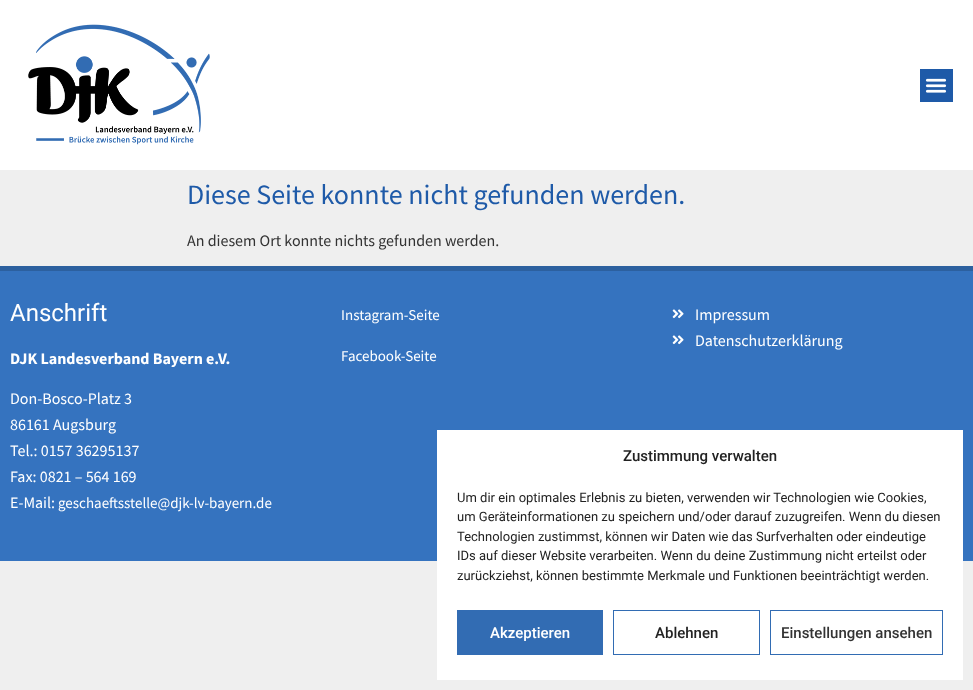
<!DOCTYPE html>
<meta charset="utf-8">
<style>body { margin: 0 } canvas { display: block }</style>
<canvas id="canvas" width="973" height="690"></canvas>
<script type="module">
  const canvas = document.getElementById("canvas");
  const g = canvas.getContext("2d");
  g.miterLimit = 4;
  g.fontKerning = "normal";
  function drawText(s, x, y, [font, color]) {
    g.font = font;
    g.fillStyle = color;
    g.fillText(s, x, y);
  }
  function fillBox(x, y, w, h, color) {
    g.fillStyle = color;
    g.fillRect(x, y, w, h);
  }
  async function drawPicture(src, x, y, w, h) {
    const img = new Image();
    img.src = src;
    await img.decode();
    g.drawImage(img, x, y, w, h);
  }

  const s1 = ["28px Source Sans Pro", "#1E5AA8"];
  const s2 = ["16px Source Sans Pro", "#333333"];
  const s3 = ["24px Roboto", "#FFFFFF"];
  const s4 = ["bold 16px Source Sans Pro", "#FFFFFF"];
  const s5 = ["16px Source Sans Pro", "#FFFFFF"];
  const s6 = ["15px Source Sans Pro", "#FFFFFF"];
  const s7 = ["500 15px Roboto", "#222222"];
  const s8 = ["13px Roboto", "#222222"];
  const s9 = ["500 15px Roboto", "#FFFFFF"];
  const s10 = ["500 15px Roboto", "#333333"];

  fillBox(0, 0, 973, 690, "#EFEFEF");
  fillBox(0, 0, 973, 170, "#FFFFFF");
  await drawPicture("pic1.png", 28, 24, 182, 121);
  fillBox(920, 69, 33, 33, "#1E5AA8");
  await drawPicture("pic2.png", 925, 78, 22, 15);
  drawText("Diese Seite konnte nicht gefunden werden.", 187, 204, s1);
  drawText("An diesem Ort konnte nichts gefunden werden.", 187, 246, s2);
  fillBox(0, 271, 973, 290, "#3573BF");
  fillBox(0, 266, 973, 5, "#2C609F");
  drawText("Anschrift", 10, 321, s3);
  drawText("DJK Landesverband Bayern e.V.", 10, 364, s4);
  drawText("Don-Bosco-Platz 3", 10, 404, s5);
  drawText("86161 Augsburg", 10, 430, s5);
  drawText("Tel.: 0157 36295137", 10, 456, s5);
  drawText("Fax: 0821 – 564 169", 10, 482, s5);
  drawText("E-Mail:", 10, 508, s5);
  drawText("geschaeftsstelle@djk-lv-bayern.de", 58, 508, s6);
  drawText("Instagram-Seite", 341, 320, s6);
  drawText("Facebook-Seite", 341, 361, s6);
  await drawPicture("pic3.png", 672, 309, 12, 10);
  drawText("Impressum", 695, 320, s5);
  await drawPicture("pic3.png", 672, 335, 12, 10);
  drawText("Datenschutzerklärung", 695, 346, s5);
  fillBox(437, 430, 526, 250, "#FFFFFF");
  drawText("Zustimmung verwalten", 623, 461, s7);
  drawText("Um dir ein optimales Erlebnis zu bieten, verwenden wir Technologien wie Cookies,", 457, 502, s8);
  drawText("um Geräteinformationen zu speichern und/oder darauf zuzugreifen. Wenn du diesen", 457, 521, s8);
  drawText("Technologien zustimmst, können wir Daten wie das Surfverhalten oder eindeutige", 457, 541, s8);
  drawText("IDs auf dieser Website verarbeiten. Wenn du deine Zustimmung nicht erteilst oder", 457, 560, s8);
  drawText("zurückziehst, können bestimmte Merkmale und Funktionen beeinträchtigt werden.", 457, 580, s8);
  fillBox(457, 610, 146, 45, "#326CB3");
  drawText("Akzeptieren", 490, 638, s9);
  g.strokeStyle = "#326CB3";
  g.strokeRect(613.5, 610.5, 146, 44);
  drawText("Ablehnen", 655, 638, s7);
  g.strokeRect(770.5, 610.5, 172, 44);
  drawText("Einstellungen ansehen", 781, 638, s10);
</script>
